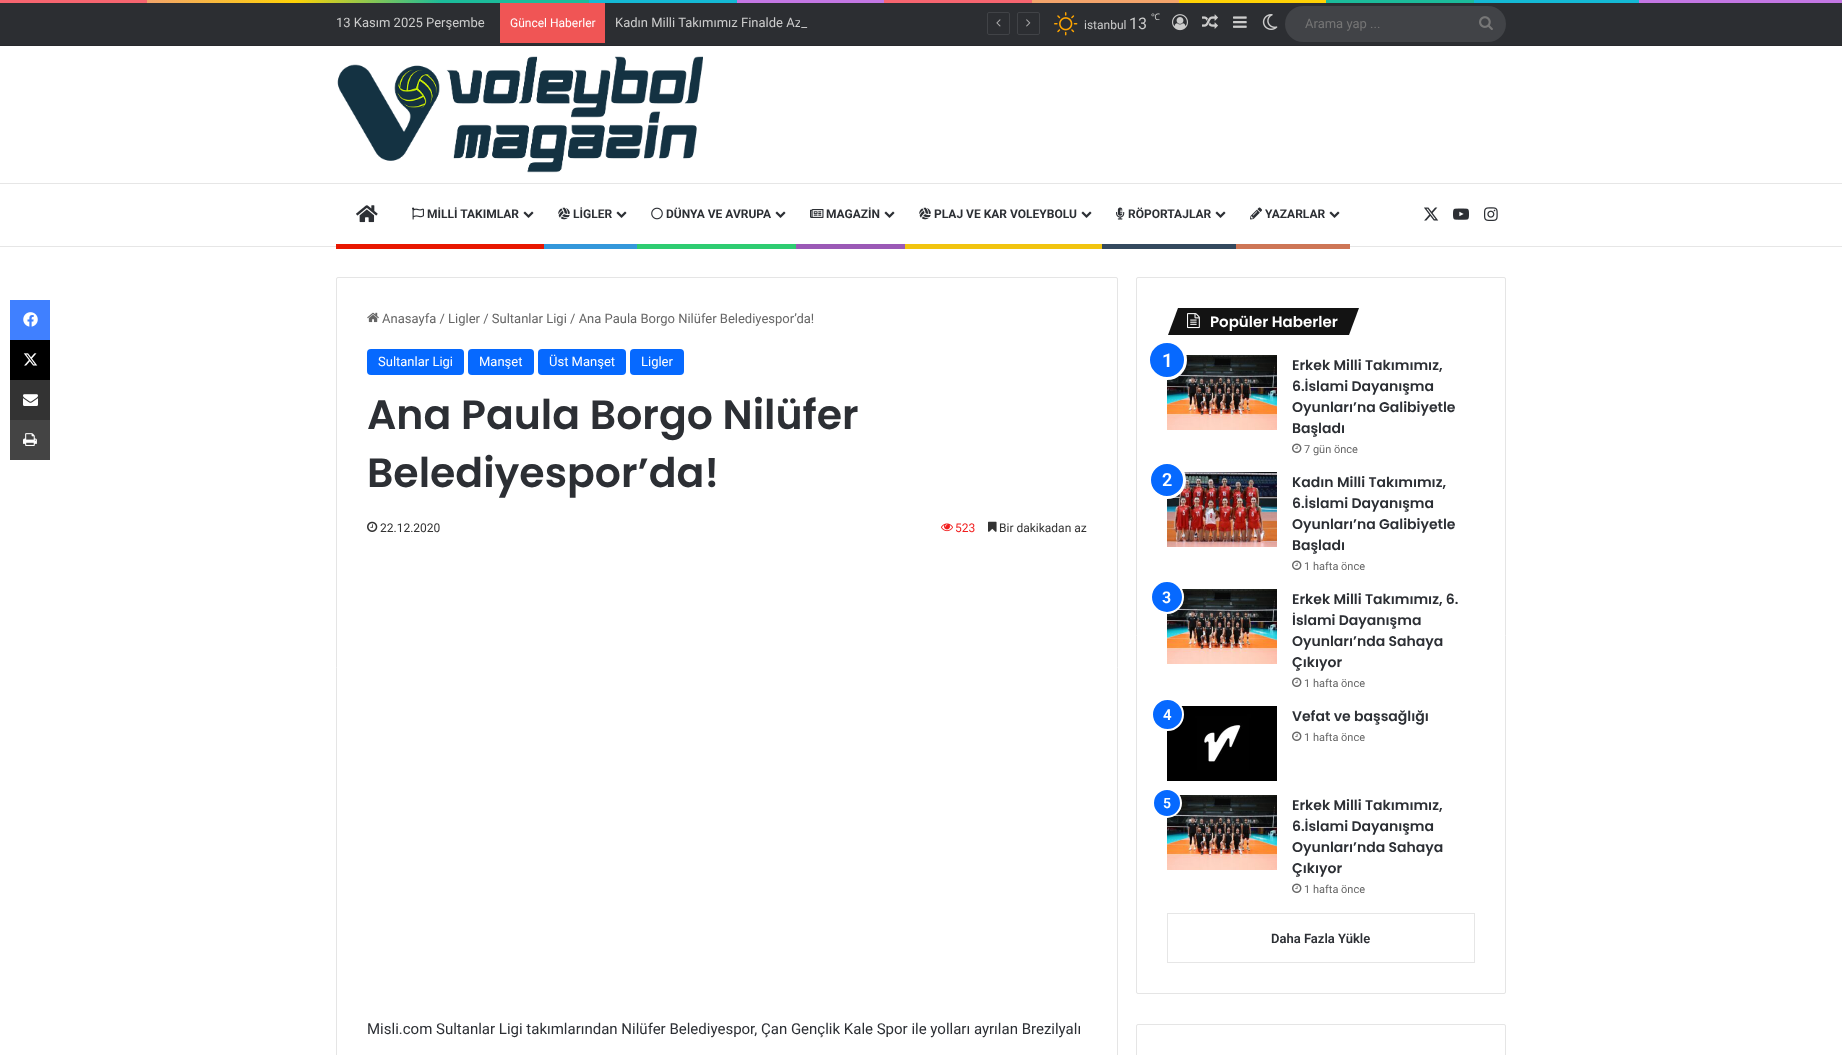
<!DOCTYPE html>
<meta charset="utf-8">
<style>body { margin: 0 } canvas { display: block }</style>
<canvas id="canvas" width="1842" height="1055"></canvas>
<script type="module">
  const canvas = document.getElementById("canvas");
  const g = canvas.getContext("2d");
  g.miterLimit = 4;
  g.fontKerning = "normal";
  function drawText(s, x, y, [font, color]) {
    g.font = font;
    g.fillStyle = color;
    g.fillText(s, x, y);
  }
  function fillBox(x, y, w, h, color) {
    g.fillStyle = color;
    g.fillRect(x, y, w, h);
  }
  function fillRounded(x, y, w, h, r, color) {
    g.fillStyle = color;
    g.beginPath();
    g.roundRect(x, y, w, h, r);
    g.fill();
  }
  async function drawPicture(src, x, y, w, h) {
    const img = new Image();
    img.src = src;
    await img.decode();
    g.drawImage(img, x, y, w, h);
  }
  let gradient;

  const s1 = ["13px Roboto", "#CCCCCC"];
  const s2 = ["12px Roboto", "#FFFFFF"];
  const s3 = ["12px Roboto", "#CCCCCC"];
  const s4 = ["16px Roboto", "#CCCCCC"];
  const s5 = ["9px Noto Sans", "#CCCCCC"];
  const s6 = ["13px Roboto", "#757575"];
  const s7 = ["bold 12px Roboto", "#2C2F34"];
  const s8 = ["13px Roboto", "#666666"];
  const s9 = ["13px Roboto", "#FFFFFF"];
  const s10 = ["600 41px Poppins", "#2C2F34"];
  const s11 = ["12px Roboto", "#333333"];
  const s12 = ["12px Roboto", "#F11E1E"];
  const s13 = ["15px Roboto", "#2C2F34"];
  const s14 = ["600 15px Poppins", "#FFFFFF"];
  const s15 = ["600 19px Roboto", "#FFFFFF"];
  const s16 = ["600 14px Poppins", "#2C2F34"];
  const s17 = ["11px Roboto", "#666666"];
  const s18 = ["600 18px Roboto", "#FFFFFF"];
  const s19 = ["600 16px Roboto", "#FFFFFF"];
  const s20 = ["600 15px Roboto", "#FFFFFF"];
  const s21 = ["600 14px Roboto", "#FFFFFF"];
  const s22 = ["600 13px Roboto", "#2C2F34"];

  fillBox(0, 0, 1842, 1055, "#FFFFFF");
  gradient = g.createLinearGradient(0, 1.5, 1842, 1.5);
  gradient.addColorStop(0, "#F76570");
  gradient.addColorStop(0.08, "#F76570");
  gradient.addColorStop(0.08, "#F3A46B");
  gradient.addColorStop(0.16, "#FFD205");
  gradient.addColorStop(0.24, "#1BBC9B");
  gradient.addColorStop(0.32, "#1BBC9B");
  gradient.addColorStop(0.32, "#14B9D5");
  gradient.addColorStop(0.4, "#14B9D5");
  gradient.addColorStop(0.4, "#C377E4");
  gradient.addColorStop(0.48, "#C377E4");
  gradient.addColorStop(0.48, "#F76570");
  gradient.addColorStop(0.56, "#F76570");
  gradient.addColorStop(0.56, "#F3A46B");
  gradient.addColorStop(0.64, "#F3A46B");
  gradient.addColorStop(0.64, "#FFD205");
  gradient.addColorStop(0.72, "#FFD205");
  gradient.addColorStop(0.72, "#1BBC9B");
  gradient.addColorStop(0.8, "#1BBC9B");
  gradient.addColorStop(0.8, "#14B9D5");
  gradient.addColorStop(0.89, "#14B9D5");
  gradient.addColorStop(0.89, "#C377E4");
  gradient.addColorStop(1, "#C377E4");
  g.fillStyle = gradient;
  g.fillRect(0, 0, 1842, 3);
  fillBox(0, 3, 1842, 42, "#2C2E32");
  fillBox(0, 45, 1842, 1, "#28292D");
  drawText("13 Kasım 2025 Perşembe", 336, 27, s1);
  fillBox(500, 3, 105, 40, "#F05555");
  drawText("Güncel Haberler", 510, 27, s2);
  drawText("Kadın Milli Takımımız Finalde Az_", 615, 27, s1);
  fillBox(800, 20, 1, 7, "#2C2E32");
  g.beginPath();
  g.roundRect(987.5, 12.5, 22, 22, 1.5);
  g.strokeStyle = "#414347";
  g.stroke();
  await drawPicture("pic1.png", 996, 19, 5, 8);
  g.beginPath();
  g.roundRect(1017.5, 12.5, 22, 22, 1.5);
  g.stroke();
  await drawPicture("pic2.png", 1026, 19, 5, 8);
  await drawPicture("pic3.png", 1054, 12, 24, 24);
  drawText("istanbul", 1084, 29, s3);
  drawText("13", 1129, 29, s4);
  drawText("℃", 1151, 20, s5);
  await drawPicture("pic4.png", 1172, 14, 16, 17);
  await drawPicture("pic5.png", 1202, 14, 16, 15);
  await drawPicture("pic6.png", 1233, 16, 14, 12);
  await drawPicture("pic7.png", 1262, 14, 16, 16);
  fillRounded(1285, 6, 221, 36, 18, "#414347");
  drawText("Arama yap ...", 1305, 28, s6);
  await drawPicture("pic8.png", 1479, 16, 14, 14);
  await drawPicture("pic9.png", 337, 56, 366, 117);
  fillBox(0, 183, 1842, 1, "#E6E6E6");
  fillBox(0, 246, 1842, 1, "#E6E6E6");
  fillBox(336, 244, 208, 5, "#E81700");
  await drawPicture("pic10.png", 356, 205, 22, 18);
  await drawPicture("pic11.png", 412, 207, 12, 13);
  drawText("MİLLİ TAKIMLAR", 427, 218, s7);
  await drawPicture("pic12.png", 523, 211, 11, 7);
  fillBox(544, 244, 93, 5, "#3498DB");
  await drawPicture("pic13.png", 558, 207, 12, 13);
  drawText("LİGLER", 573, 218, s7);
  await drawPicture("pic12.png", 616, 211, 11, 7);
  fillBox(637, 244, 159, 5, "#2ECC71");
  await drawPicture("pic14.png", 651, 207, 12, 13);
  drawText("DÜNYA VE AVRUPA", 666, 218, s7);
  await drawPicture("pic12.png", 775, 211, 11, 7);
  fillBox(796, 244, 109, 5, "#9B59B6");
  await drawPicture("pic15.png", 810, 209, 14, 9);
  drawText("MAGAZİN", 826, 218, s7);
  await drawPicture("pic12.png", 884, 211, 11, 7);
  fillBox(905, 244, 197, 5, "#F1C40F");
  await drawPicture("pic13.png", 919, 207, 12, 13);
  drawText("PLAJ VE KAR VOLEYBOLU", 934, 218, s7);
  await drawPicture("pic12.png", 1081, 211, 11, 7);
  fillBox(1102, 244, 134, 5, "#34495E");
  await drawPicture("pic16.png", 1116, 207, 9, 13);
  drawText("RÖPORTAJLAR", 1128, 218, s7);
  await drawPicture("pic12.png", 1215, 211, 11, 7);
  fillBox(1236, 244, 114, 5, "#CE7656");
  await drawPicture("pic17.png", 1250, 207, 12, 13);
  drawText("YAZARLAR", 1265, 218, s7);
  await drawPicture("pic12.png", 1329, 211, 11, 7);
  await drawPicture("pic18.png", 1424, 207, 15, 14);
  await drawPicture("pic19.png", 1453, 208, 16, 12);
  await drawPicture("pic20.png", 1484, 207, 14, 14);
  fillBox(10, 300, 40, 40, "#4080FF");
  await drawPicture("pic21.png", 23, 312, 15, 15);
  fillBox(10, 340, 40, 40, "#000000");
  await drawPicture("pic22.png", 23, 353, 15, 13);
  fillBox(10, 380, 40, 40, "#333333");
  await drawPicture("pic23.png", 23, 394, 15, 12);
  fillBox(10, 420, 40, 40, "#444444");
  await drawPicture("pic24.png", 23, 433, 14, 13);
  g.beginPath();
  g.roundRect(336.5, 277.5, 781, 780, 1.5);
  g.strokeStyle = "#E5E5E5";
  g.stroke();
  await drawPicture("pic25.png", 367, 312, 12, 11);
  drawText("Anasayfa / Ligler / Sultanlar Ligi / Ana Paula Borgo Nilüfer Belediyespor’da!", 382, 323, s8);
  fillRounded(367, 349, 97, 26, 4, "#0669FF");
  drawText("Sultanlar Ligi", 378, 366, s9);
  fillRounded(468, 349, 66, 26, 4, "#0669FF");
  drawText("Manşet", 479, 366, s9);
  fillRounded(538, 349, 88, 26, 4, "#0669FF");
  drawText("Üst Manşet", 549, 366, s9);
  fillRounded(630, 349, 54, 26, 4, "#0669FF");
  drawText("Ligler", 641, 366, s9);
  drawText("Ana Paula Borgo Nilüfer", 367, 429, s10);
  drawText("Belediyespor’da!", 367, 487, s10);
  await drawPicture("pic26.png", 367, 521, 11, 11);
  drawText("22.12.2020", 380, 532, s11);
  await drawPicture("pic27.png", 941, 523, 12, 9);
  drawText("523", 955, 532, s12);
  await drawPicture("pic28.png", 988, 521, 9, 11);
  drawText("Bir dakikadan az", 999, 532, s11);
  drawText("Misli.com Sultanlar Ligi takımlarından Nilüfer Belediyespor, Çan Gençlik Kale Spor ile yolları ayrılan Brezilyalı", 367, 1034, s13);
  g.beginPath();
  g.roundRect(1136.5, 277.5, 369, 716, 1.5);
  g.stroke();
  g.fillStyle = "#131313";
  g.beginPath();
  g.moveTo(1178, 308);
  g.lineTo(1359, 308);
  g.lineTo(1349, 335);
  g.lineTo(1168, 335);
  g.closePath();
  g.fill();
  await drawPicture("pic29.png", 1187, 313, 13, 16);
  drawText("Popüler Haberler", 1210, 327, s14);
  await drawPicture("pic30.png", 1167, 355, 110, 75);
  g.fillStyle = "#0669FF";
  g.beginPath();
  g.arc(1167, 360, 18.5, 0, Math.PI * 2);
  g.fill();
  g.strokeStyle = "#FFFFFF";
  g.lineWidth = 3;
  g.stroke();
  drawText("1", 1162, 367, s15);
  drawText("Erkek Milli Takımımız,", 1292, 370, s16);
  drawText("6.İslami Dayanışma", 1292, 391, s16);
  drawText("Oyunları’na Galibiyetle", 1292, 412, s16);
  drawText("Başladı", 1292, 433, s16);
  await drawPicture("pic31.png", 1292, 443, 10, 10);
  drawText("7 gün önce", 1304, 453, s17);
  await drawPicture("pic32.png", 1167, 472, 110, 75);
  g.fillStyle = "#0669FF";
  g.beginPath();
  g.arc(1167, 480, 17.5, 0, Math.PI * 2);
  g.fill();
  g.stroke();
  drawText("2", 1162, 486, s18);
  drawText("Kadın Milli Takımımız,", 1292, 487, s16);
  drawText("6.İslami Dayanışma", 1292, 508, s16);
  drawText("Oyunları’na Galibiyetle", 1292, 529, s16);
  drawText("Başladı", 1292, 550, s16);
  await drawPicture("pic31.png", 1292, 560, 10, 10);
  drawText("1 hafta önce", 1304, 570, s17);
  await drawPicture("pic30.png", 1167, 589, 110, 75);
  g.fillStyle = "#0669FF";
  g.beginPath();
  g.arc(1167, 597, 16, 0, Math.PI * 2);
  g.fill();
  g.lineWidth = 2;
  g.stroke();
  drawText("3", 1162, 603, s19);
  drawText("Erkek Milli Takımımız, 6.", 1292, 604, s16);
  drawText("İslami Dayanışma", 1292, 625, s16);
  drawText("Oyunları’nda Sahaya", 1292, 646, s16);
  drawText("Çıkıyor", 1292, 667, s16);
  await drawPicture("pic31.png", 1292, 677, 10, 10);
  drawText("1 hafta önce", 1304, 687, s17);
  await drawPicture("pic33.png", 1167, 706, 110, 75);
  g.fillStyle = "#0669FF";
  g.beginPath();
  g.arc(1167.5, 714.5, 15.5, 0, Math.PI * 2);
  g.fill();
  g.stroke();
  drawText("4", 1163, 720, s20);
  drawText("Vefat ve başsağlığı", 1292, 721, s16);
  await drawPicture("pic31.png", 1292, 731, 10, 10);
  drawText("1 hafta önce", 1304, 741, s17);
  await drawPicture("pic30.png", 1167, 795, 110, 75);
  g.fillStyle = "#0669FF";
  g.beginPath();
  g.arc(1167, 803, 14, 0, Math.PI * 2);
  g.fill();
  g.stroke();
  drawText("5", 1163, 808, s21);
  drawText("Erkek Milli Takımımız,", 1292, 810, s16);
  drawText("6.İslami Dayanışma", 1292, 831, s16);
  drawText("Oyunları’nda Sahaya", 1292, 852, s16);
  drawText("Çıkıyor", 1292, 873, s16);
  await drawPicture("pic31.png", 1292, 883, 10, 10);
  drawText("1 hafta önce", 1304, 893, s17);
  g.strokeStyle = "#E6E6E6";
  g.lineWidth = 1;
  g.strokeRect(1167.5, 913.5, 307, 49);
  drawText("Daha Fazla Yükle", 1271, 943, s22);
  g.beginPath();
  g.roundRect(1136.5, 1024.5, 369, 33, 1.5);
  g.strokeStyle = "#E5E5E5";
  g.stroke();
</script>
